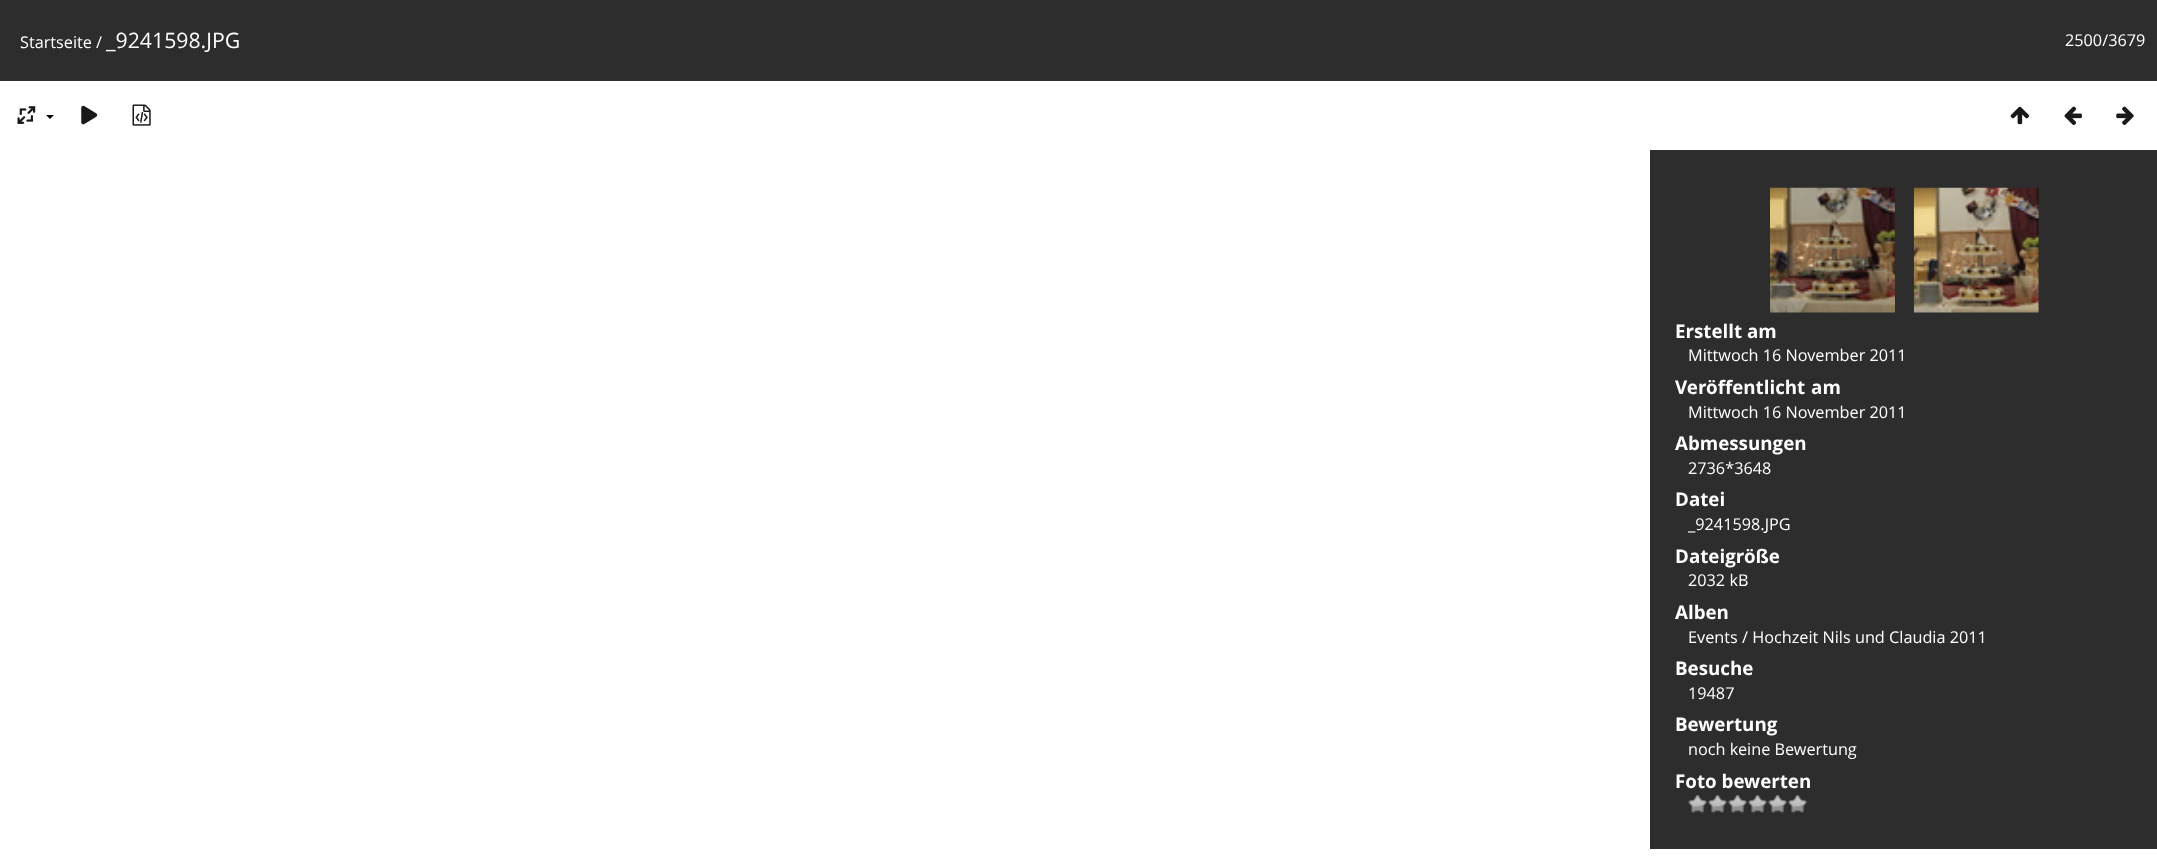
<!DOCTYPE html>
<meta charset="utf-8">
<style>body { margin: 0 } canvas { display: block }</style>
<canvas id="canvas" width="2157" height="864"></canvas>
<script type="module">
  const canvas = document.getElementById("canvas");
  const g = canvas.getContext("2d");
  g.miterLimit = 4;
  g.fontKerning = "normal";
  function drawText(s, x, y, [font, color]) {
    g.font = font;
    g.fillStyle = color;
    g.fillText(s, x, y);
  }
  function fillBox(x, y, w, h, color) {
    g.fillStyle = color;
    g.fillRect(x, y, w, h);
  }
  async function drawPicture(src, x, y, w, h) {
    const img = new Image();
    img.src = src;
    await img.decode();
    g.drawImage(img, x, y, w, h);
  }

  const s1 = ["16.25px Open Sans", "#FFFFFF"];
  const s2 = ["21.25px Open Sans", "#FFFFFF"];
  const s3 = ["bold 18.75px Open Sans", "#FFFFFF"];

  fillBox(0, 0, 2157, 864, "#FFFFFF");
  fillBox(0, 0, 2157, 81, "#2D2D2D");
  drawText("Startseite /", 20, 48, s1);
  drawText("_9241598.JPG", 106, 48, s2);
  drawText("2500/3679", 2065, 46, s1);
  await drawPicture("pic1.png", 17, 106, 19, 18);
  g.fillStyle = "#000000";
  g.beginPath();
  g.moveTo(46, 115);
  g.lineTo(54, 115);
  g.lineTo(50, 119);
  g.closePath();
  g.fill();
  await drawPicture("pic2.png", 81, 105, 17, 20);
  await drawPicture("pic3.png", 132, 104, 19, 22);
  await drawPicture("pic4.png", 2010, 106, 20, 19);
  await drawPicture("pic5.png", 2064, 106, 18, 19);
  await drawPicture("pic6.png", 2116, 106, 18, 19);
  fillBox(1650, 150, 507, 699, "#2D2D2D");
  await drawPicture("pic7.png", 1770, 187, 125, 126);
  await drawPicture("pic8.png", 1913, 187, 126, 126);
  drawText("Erstellt am", 1675, 338, s3);
  drawText("Mittwoch 16 November 2011", 1688, 361, s1);
  g.wordSpacing = "1px";
  drawText("Veröffentlicht am", 1675, 394, s3);
  g.wordSpacing = "0px";
  drawText("Mittwoch 16 November 2011", 1688, 418, s1);
  drawText("Abmessungen", 1675, 450, s3);
  drawText("2736*3648", 1688, 474, s1);
  drawText("Datei", 1675, 506, s3);
  drawText("_9241598.JPG", 1688, 530, s1);
  drawText("Dateigröße", 1675, 563, s3);
  drawText("2032 kB", 1688, 586, s1);
  drawText("Alben", 1675, 619, s3);
  drawText("Events / Hochzeit Nils und Claudia 2011", 1688, 643, s1);
  drawText("Besuche", 1675, 675, s3);
  drawText("19487", 1688, 699, s1);
  drawText("Bewertung", 1675, 731, s3);
  drawText("noch keine Bewertung", 1688, 755, s1);
  drawText("Foto bewerten", 1675, 788, s3);
  await drawPicture("pic9.png", 1688, 795, 20, 18);
  await drawPicture("pic9.png", 1708, 795, 20, 18);
  await drawPicture("pic9.png", 1728, 795, 20, 18);
  await drawPicture("pic9.png", 1748, 795, 20, 18);
  await drawPicture("pic9.png", 1768, 795, 20, 18);
  await drawPicture("pic9.png", 1788, 795, 20, 18);
</script>
